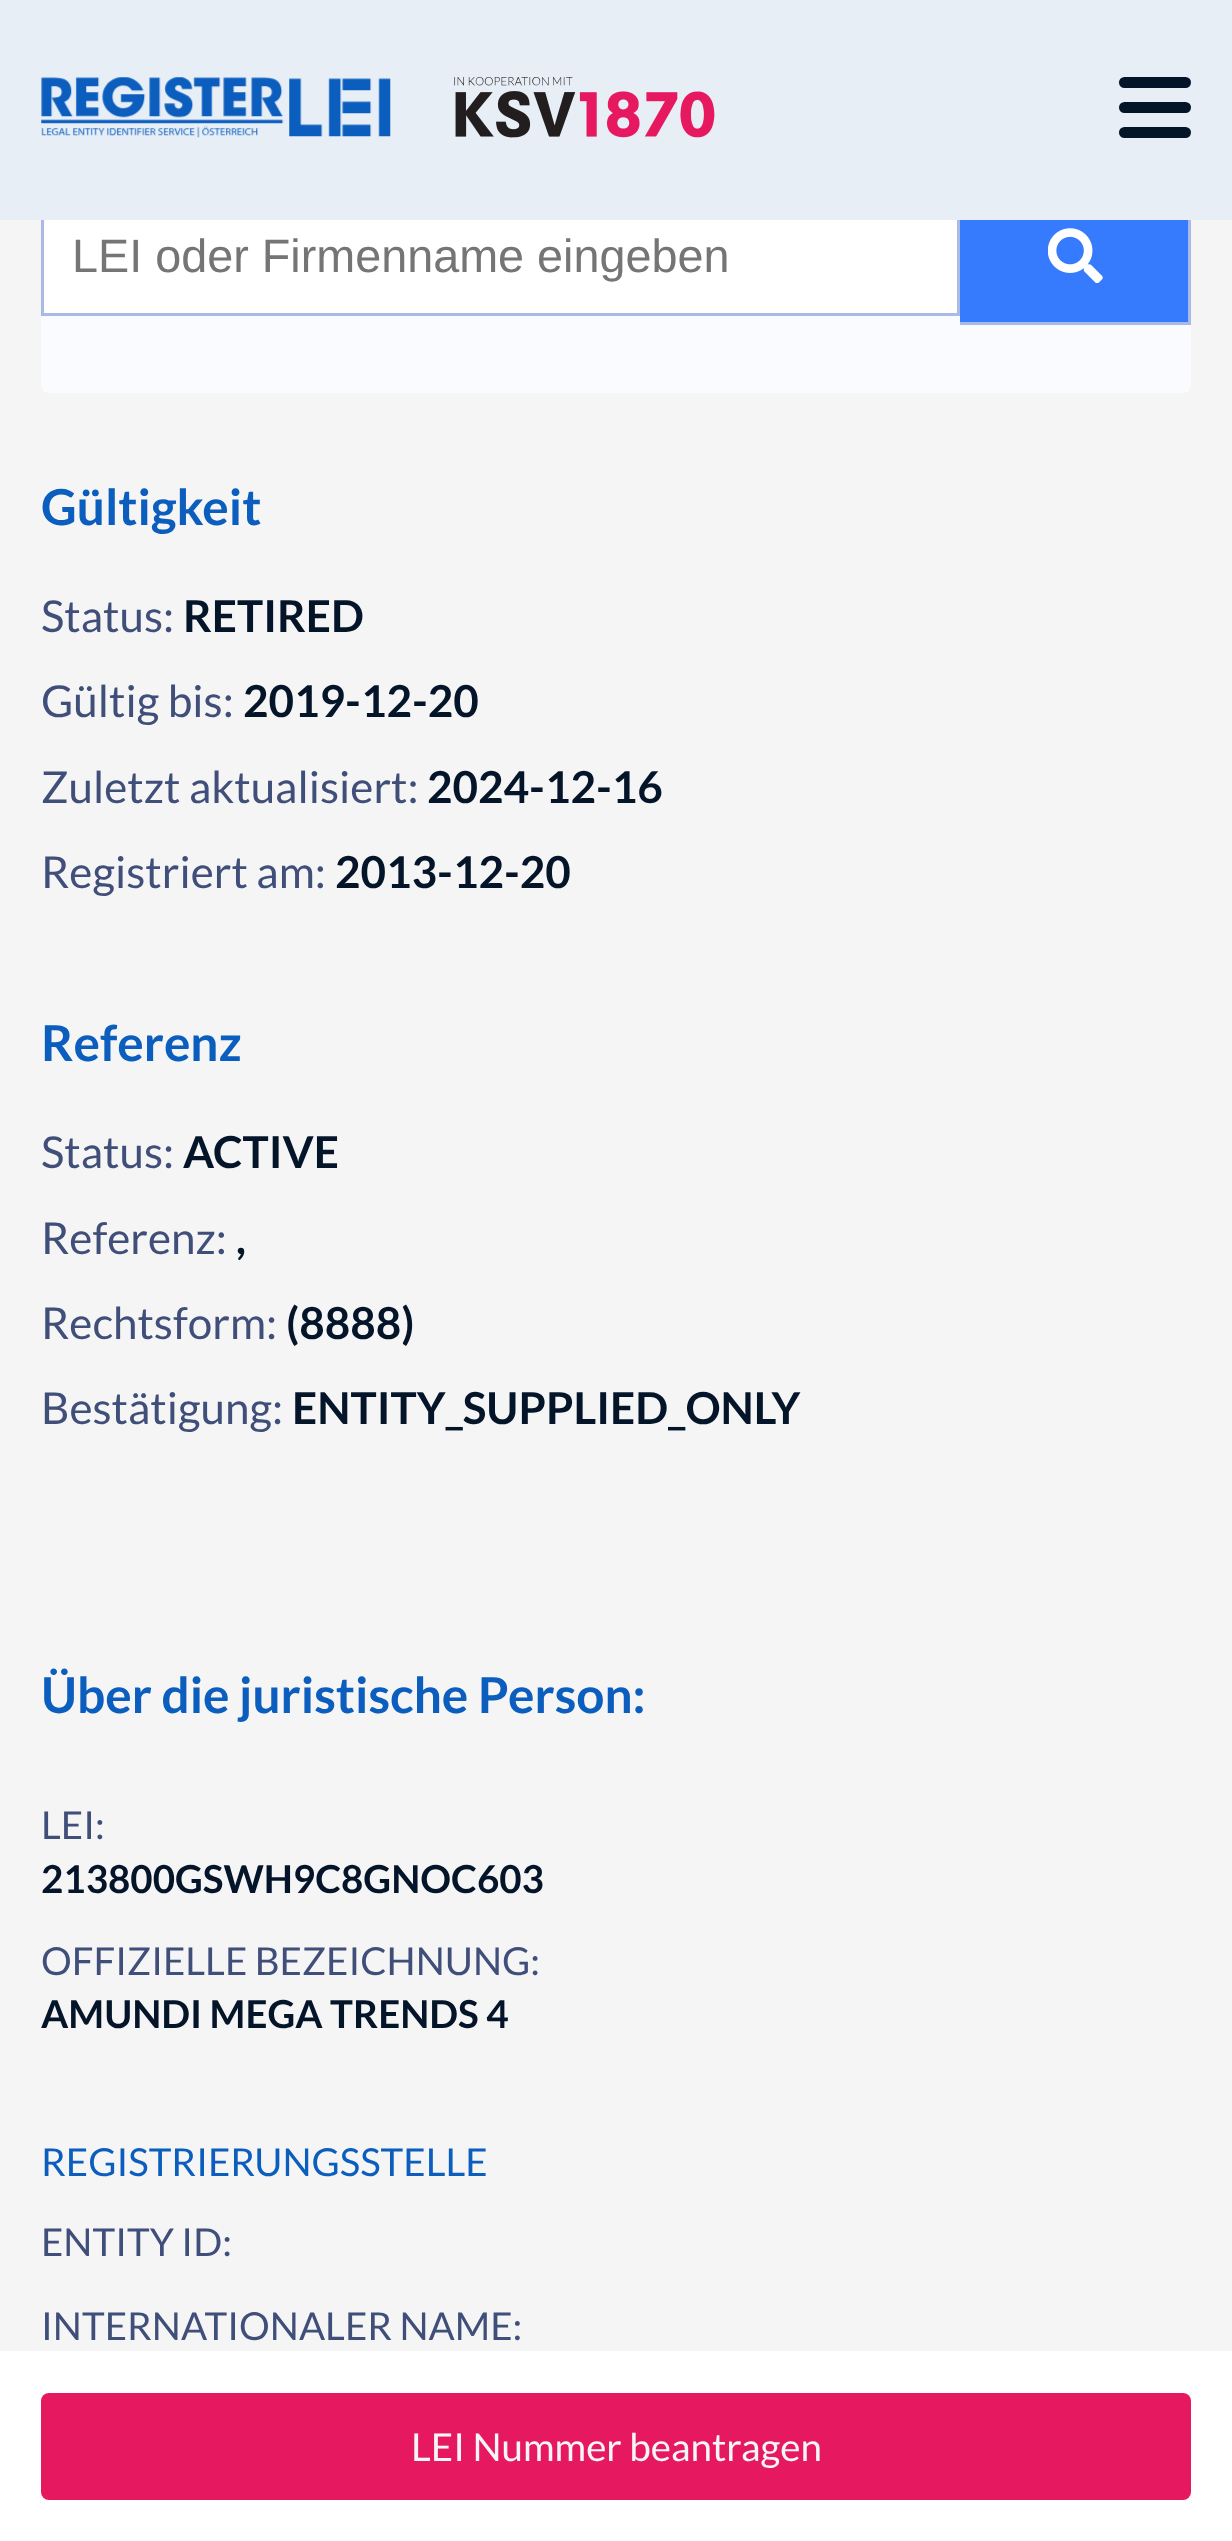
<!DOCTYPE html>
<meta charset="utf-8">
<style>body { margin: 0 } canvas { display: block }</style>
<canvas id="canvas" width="1232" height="2541"></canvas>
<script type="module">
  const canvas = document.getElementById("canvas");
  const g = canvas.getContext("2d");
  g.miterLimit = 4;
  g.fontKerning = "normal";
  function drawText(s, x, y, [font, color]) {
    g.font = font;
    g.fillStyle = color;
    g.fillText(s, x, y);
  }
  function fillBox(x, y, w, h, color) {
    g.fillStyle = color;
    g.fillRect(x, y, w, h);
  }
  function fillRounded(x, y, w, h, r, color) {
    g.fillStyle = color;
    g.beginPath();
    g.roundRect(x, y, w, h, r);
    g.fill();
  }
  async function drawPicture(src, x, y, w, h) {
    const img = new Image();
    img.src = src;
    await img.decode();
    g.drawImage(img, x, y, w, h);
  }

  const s1 = ["46.75px Liberation Sans", "#757575"];
  const s2 = ["bold 49.5px Lato", "#0C5EBE"];
  const s3 = ["44px Lato", "#404E7A"];
  const s4 = ["bold 44px Lato", "#041429"];
  const s5 = ["38.5px Lato", "#404E7A"];
  const s6 = ["bold 38.5px Lato", "#041429"];
  const s7 = ["38.5px Lato", "#0C5EBE"];
  const s8 = ["38.5px Lato", "#F5F5F5"];

  fillBox(0, 0, 1232, 2541, "#F5F5F5");
  fillRounded(41, -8, 1150, 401, 8, "#F9FBFF");
  fillBox(44, 220, 913, 93, "#FFFFFF");
  g.strokeStyle = "#AAB9E6";
  g.lineWidth = 3;
  g.strokeRect(42.5, 202.5, 916, 112);
  fillBox(0, 0, 1232, 220, "#E7EEF6");
  await drawPicture("pic1.png", 41, 77, 350, 61);
  await drawPicture("pic2.png", 454, 77, 261, 61);
  fillRounded(1119, 77, 72, 11, 5.5, "#041429");
  fillRounded(1119, 102, 72, 11, 5.5, "#041429");
  fillRounded(1119, 127, 72, 11, 5.5, "#041429");
  drawText("LEI oder Firmenname eingeben", 72, 272, s1);
  fillBox(960, 220, 228, 102, "#367BFD");
  fillBox(1188, 220, 3, 105, "#AAB9E6");
  fillBox(960, 322, 231, 3, "#AAB9E6");
  await drawPicture("pic3.png", 1048, 228, 55, 55);
  drawText("Gültigkeit", 41, 525, s2);
  drawText("Status:", 41, 632, s3);
  drawText("RETIRED", 183, 632, s4);
  drawText("Gültig bis:", 41, 717, s3);
  drawText("2019-12-20", 243, 717, s4);
  drawText("Zuletzt aktualisiert:", 41, 803, s3);
  drawText("2024-12-16", 427, 803, s4);
  drawText("Registriert am:", 41, 888, s3);
  drawText("2013-12-20", 335, 888, s4);
  drawText("Referenz", 41, 1061, s2);
  drawText("Status:", 41, 1168, s3);
  drawText("ACTIVE", 183, 1168, s4);
  drawText("Referenz:", 41, 1254, s3);
  drawText(",", 236, 1254, s4);
  drawText("Rechtsform:", 41, 1339, s3);
  drawText("(8888)", 286, 1339, s4);
  drawText("Bestätigung:", 41, 1424, s3);
  drawText("ENTITY_SUPPLIED_ONLY", 292, 1424, s4);
  drawText("Über die juristische Person:", 41, 1713, s2);
  drawText("LEI:", 41, 1839, s5);
  drawText("213800GSWH9C8GNOC603", 41, 1893, s6);
  drawText("OFFIZIELLE BEZEICHNUNG:", 41, 1975, s5);
  drawText("AMUNDI MEGA TRENDS 4", 41, 2028, s6);
  drawText("REGISTRIERUNGSSTELLE", 41, 2176, s7);
  drawText("ENTITY ID:", 41, 2256, s5);
  drawText("INTERNATIONALER NAME:", 41, 2340, s5);
  fillBox(0, 2351, 1232, 190, "#FFFFFF");
  fillRounded(41, 2393, 1150, 107, 8, "#E61860");
  drawText("LEI Nummer beantragen", 411, 2461, s8);
</script>
